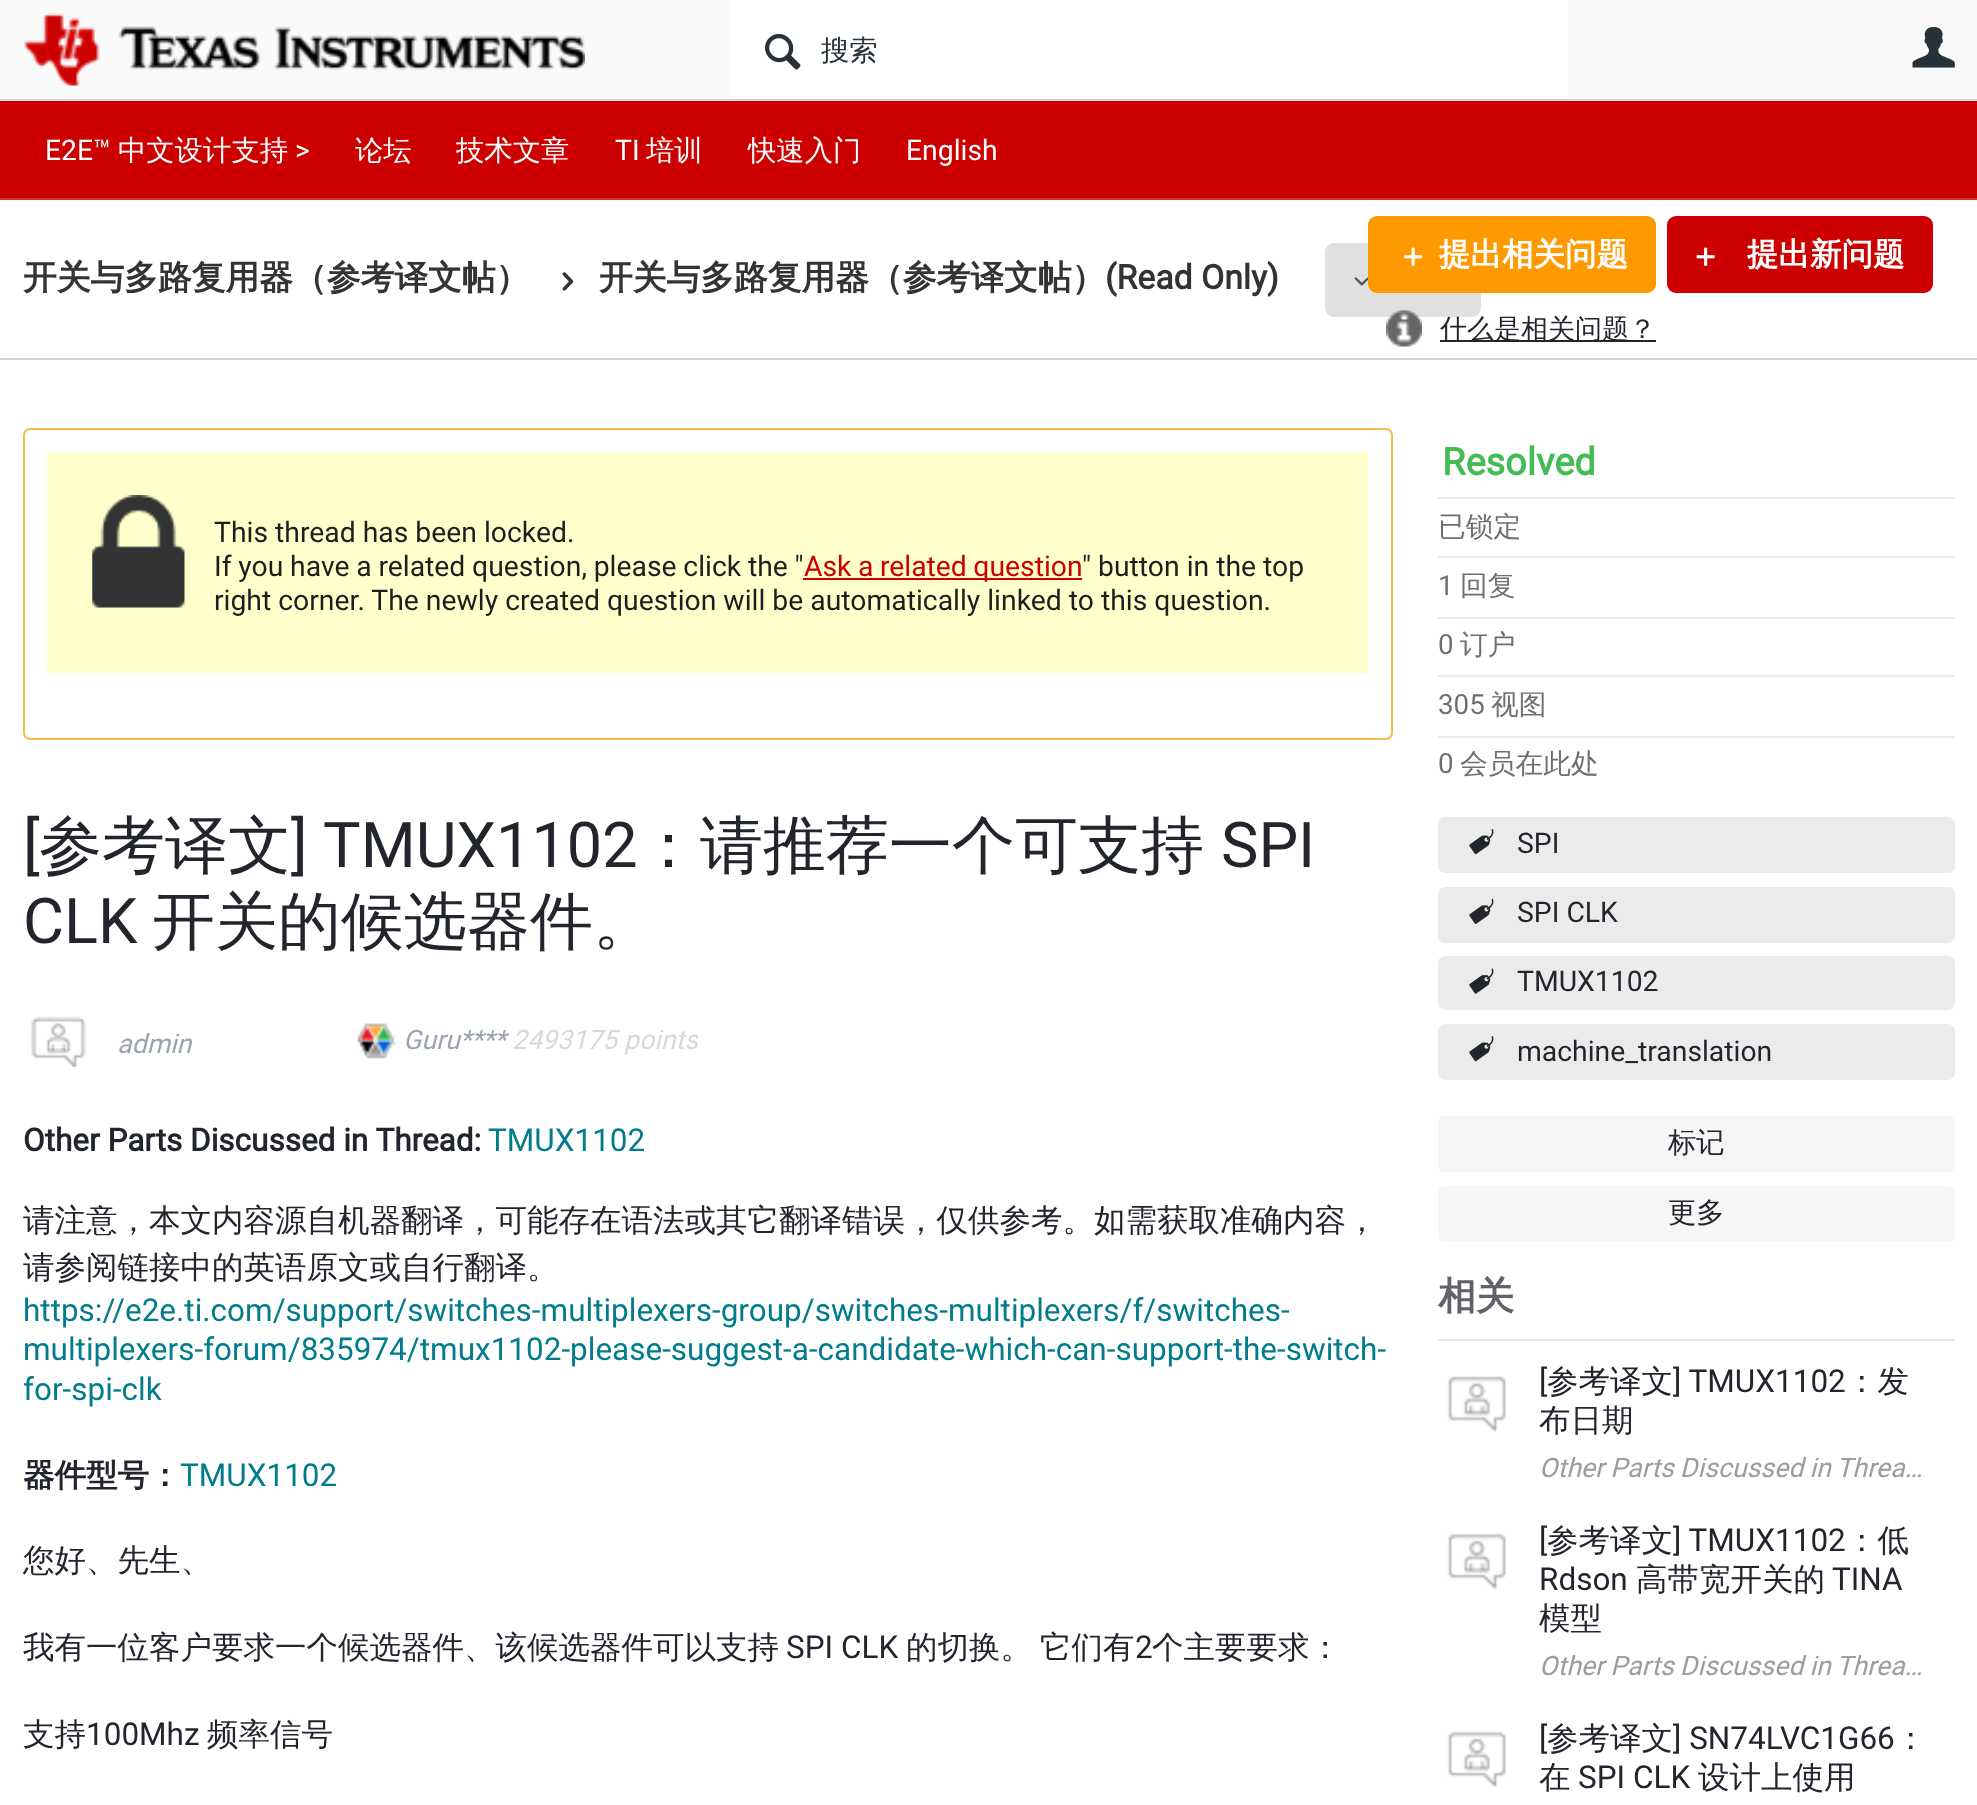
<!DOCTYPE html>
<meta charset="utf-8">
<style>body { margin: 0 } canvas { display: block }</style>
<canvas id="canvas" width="1977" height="1805"></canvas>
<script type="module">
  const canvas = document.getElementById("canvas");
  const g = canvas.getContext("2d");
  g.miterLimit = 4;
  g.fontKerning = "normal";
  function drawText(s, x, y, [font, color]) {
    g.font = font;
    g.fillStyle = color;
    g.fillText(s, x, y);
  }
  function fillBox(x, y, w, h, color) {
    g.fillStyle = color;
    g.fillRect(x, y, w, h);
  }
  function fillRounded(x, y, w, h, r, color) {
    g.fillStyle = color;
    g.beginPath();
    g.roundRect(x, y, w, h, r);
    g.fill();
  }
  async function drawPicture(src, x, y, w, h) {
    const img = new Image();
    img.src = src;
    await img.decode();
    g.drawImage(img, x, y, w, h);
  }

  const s1 = ["500 28.35px WenQuanYi Zen Hei", "#263238"];
  const s2 = ["28.35px Roboto", "#FFFFFF"];
  const s3 = ["500 28.35px WenQuanYi Zen Hei", "#FFFFFF"];
  const s4 = ["bold 33.75px WenQuanYi Zen Hei", "#333333"];
  const s5 = ["bold 33.75px Roboto", "#333333"];
  const s6 = ["bold 31.5px WenQuanYi Zen Hei", "#FFFFFF"];
  const s7 = ["500 27px WenQuanYi Zen Hei", "#22252C"];
  const s8 = ["28.35px Roboto", "#1E1E1E"];
  const s9 = ["28.35px Roboto", "#CC0000"];
  const s10 = ["63px Roboto", "#22252C"];
  const s11 = ["500 63px WenQuanYi Zen Hei", "#22252C"];
  const s12 = ["italic 26.75px Roboto", "#9BA2B2"];
  const s13 = ["italic 26.75px Roboto", "#D5D8DE"];
  const s14 = ["bold 31.5px Roboto", "#22252C"];
  const s15 = ["31.5px Roboto", "#007C8C"];
  const s16 = ["500 31.5px WenQuanYi Zen Hei", "#22252C"];
  const s17 = ["bold 31.5px WenQuanYi Zen Hei", "#22252C"];
  const s18 = ["31.5px Roboto", "#22252C"];
  const s19 = ["bold 38px Roboto", "#44BB55"];
  const s20 = ["500 27.75px WenQuanYi Zen Hei", "#6D6F74"];
  const s21 = ["27.75px Roboto", "#6D6F74"];
  const s22 = ["28.35px Roboto", "#22252C"];
  const s23 = ["500 28.35px WenQuanYi Zen Hei", "#22252C"];
  const s24 = ["bold 38px WenQuanYi Zen Hei", "#606267"];
  const s25 = ["italic 26.75px Roboto", "#9C9DA0"];

  fillBox(0, 0, 1977, 1805, "#FFFFFF");
  fillBox(0, 0, 1977, 99, "#FAFAFA");
  fillBox(0, 99, 1977, 2, "#CFD8DC");
  await drawPicture("pic1.png", 24, 13, 561, 73);
  fillBox(731, 0, 837, 99, "#FFFFFF");
  await drawPicture("pic2.png", 765, 33, 36, 37);
  drawText("搜索", 821, 60, s1);
  await drawPicture("pic3.png", 1912, 27, 43, 41);
  fillBox(0, 358, 1977, 2, "#CFD8DC");
  fillBox(0, 101, 1977, 97, "#CC0000");
  fillBox(0, 198, 1977, 2, "#D63333");
  drawText("E2E™", 45, 160, s2);
  drawText("中文设计支持", 118, 160, s3);
  drawText(">", 295, 160, s2);
  drawText("论坛", 355, 160, s3);
  drawText("技术文章", 456, 160, s3);
  drawText("TI", 615, 160, s2);
  drawText("培训", 646, 160, s3);
  drawText("快速入门", 748, 160, s3);
  drawText("English", 906, 160, s2);
  drawText("开关与多路复用器（参考译文帖）", 23, 289, s4);
  await drawPicture("pic4.png", 562, 272, 12, 19);
  drawText("开关与多路复用器（参考译文帖）", 599, 289, s4);
  drawText("(Read Only)", 1105, 289, s5);
  fillRounded(1325, 243, 156, 74, 9, "#E0E0E0");
  await drawPicture("pic5.png", 1354, 277, 14, 9);
  fillRounded(1368, 216, 288, 77, 9, "#FF9900");
  await drawPicture("pic6.png", 1404, 247, 19, 19);
  drawText("提出相关问题", 1439, 265, s6);
  await drawPicture("pic7.png", 1386, 310, 36, 37);
  fillBox(1440, 340, 216, 2, "#22252C");
  drawText("什么是相关问题？", 1440, 338, s7);
  fillRounded(1667, 216, 266, 77, 9, "#CC0000");
  await drawPicture("pic8.png", 1696, 247, 19, 19);
  drawText("提出新问题", 1747, 265, s6);
  g.beginPath();
  g.roundRect(24, 429, 1368, 310, 6);
  g.strokeStyle = "#FAB94D";
  g.lineWidth = 2;
  g.stroke();
  fillBox(47, 452, 1321, 221, "#FFFFCC");
  await drawPicture("pic9.png", 92, 495, 93, 113);
  drawText("This thread has been locked.", 214, 542, s8);
  g.wordSpacing = "-0.25px";
  drawText("If you have a related question, please click the \"", 214, 576, s8);
  fillBox(803, 578, 279, 2, "#CC0000");
  g.wordSpacing = "-0.5px";
  drawText("Ask a related question", 804, 576, s9);
  g.wordSpacing = "0px";
  drawText("\" button in the top", 1082, 576, s8);
  drawText("right corner. The newly created question will be automatically linked to this question.", 214, 610, s8);
  drawText("[", 23, 867, s10);
  drawText("参考译文", 39, 867, s11);
  g.wordSpacing = "1px";
  drawText("] TMUX1102", 291, 867, s10);
  g.wordSpacing = "0px";
  drawText("：请推荐一个可支持", 637, 867, s11);
  drawText("SPI", 1221, 867, s10);
  drawText("CLK", 23, 943, s10);
  drawText("开关的候选器件。", 152, 943, s11);
  await drawPicture("pic10.png", 31, 1016, 55, 52);
  drawText("admin", 117, 1053, s12);
  await drawPicture("pic11.png", 357, 1023, 39, 36);
  drawText("Guru****", 403, 1049, s12);
  drawText("2493175", 512, 1049, s13);
  g.save();
  g.beginPath();
  g.rect(23, 1006, 675, 72);
  g.clip();
  drawText("points", 624, 1049, s13);
  g.restore();
  drawText("Other Parts Discussed in Thread:", 23, 1151, s14);
  drawText("TMUX1102", 488, 1151, s15);
  drawText("请注意，本文内容源自机器翻译，可能存在语法或其它翻译错误，仅供参考。如需获取准确内容，", 23, 1231, s16);
  drawText("请参阅链接中的英语原文或自行翻译。", 23, 1278, s16);
  drawText("https://e2e.ti.com/support/switches-multiplexers-group/switches-multiplexers/f/switches-", 23, 1321, s15);
  drawText("multiplexers-forum/835974/tmux1102-please-suggest-a-candidate-which-can-support-the-switch-", 23, 1360, s15);
  drawText("for-spi-clk", 23, 1400, s15);
  drawText("器件型号：", 23, 1486, s17);
  drawText("TMUX1102", 180, 1486, s15);
  drawText("您好、先生、", 23, 1571, s16);
  drawText("我有一位客户要求一个候选器件、该候选器件可以支持", 23, 1658, s16);
  drawText("SPI CLK", 786, 1658, s18);
  drawText("的切换。", 906, 1658, s16);
  drawText("它们有", 1040, 1658, s16);
  drawText("2", 1135, 1658, s18);
  drawText("个主要要求：", 1152, 1658, s16);
  drawText("支持", 23, 1745, s16);
  drawText("100Mhz", 86, 1745, s18);
  drawText("频率信号", 207, 1745, s16);
  fillBox(1438, 497, 517, 2, "#EBEBEC");
  drawText("Resolved", 1442, 475, s19);
  fillBox(1438, 556, 517, 2, "#EBEBEC");
  drawText("已锁定", 1438, 536, s20);
  fillBox(1438, 617, 517, 2, "#EBEBEC");
  drawText("1", 1438, 595, s21);
  drawText("回复", 1460, 595, s20);
  fillBox(1438, 675, 517, 2, "#EBEBEC");
  drawText("0", 1438, 654, s21);
  drawText("订户", 1460, 654, s20);
  fillBox(1438, 736, 517, 2, "#EBEBEC");
  drawText("305", 1438, 714, s21);
  drawText("视图", 1491, 714, s20);
  drawText("0", 1438, 773, s21);
  drawText("会员在此处", 1460, 773, s20);
  fillRounded(1438, 817, 517, 56, 7, "#EBEBEC");
  await drawPicture("pic12.png", 1469, 829, 25, 26);
  drawText("SPI", 1517, 853, s22);
  fillRounded(1438, 887, 517, 56, 7, "#EBEBEC");
  await drawPicture("pic13.png", 1469, 898, 25, 26);
  drawText("SPI CLK", 1517, 922, s22);
  fillRounded(1438, 956, 517, 54, 7, "#EBEBEC");
  await drawPicture("pic14.png", 1469, 968, 25, 26);
  drawText("TMUX1102", 1517, 991, s22);
  fillRounded(1438, 1024, 517, 56, 7, "#EBEBEC");
  await drawPicture("pic12.png", 1469, 1036, 25, 26);
  drawText("machine_translation", 1517, 1061, s22);
  fillRounded(1438, 1116, 517, 56, 7, "#F6F6F7");
  drawText("标记", 1668, 1152, s23);
  fillRounded(1438, 1186, 517, 56, 7, "#F6F6F7");
  drawText("更多", 1668, 1222, s23);
  fillBox(1438, 1339, 517, 2, "#E7E7E8");
  drawText("相关", 1438, 1309, s24);
  drawText("[", 1539, 1392, s18);
  drawText("参考译文", 1547, 1392, s16);
  drawText("] TMUX1102", 1673, 1392, s18);
  drawText("：发", 1846, 1392, s16);
  drawText("布日期", 1539, 1431, s16);
  await drawPicture("pic15.png", 1447, 1376, 59, 56);
  g.wordSpacing = "-0.5px";
  drawText("Other Parts Discussed in Threa…", 1539, 1477, s25);
  g.wordSpacing = "0px";
  drawText("[", 1539, 1551, s18);
  drawText("参考译文", 1547, 1551, s16);
  drawText("] TMUX1102", 1673, 1551, s18);
  drawText("：低", 1846, 1551, s16);
  drawText("Rdson", 1539, 1590, s18);
  drawText("高带宽开关的", 1636, 1590, s16);
  drawText("TINA", 1832, 1590, s18);
  drawText("模型", 1539, 1629, s16);
  await drawPicture("pic16.png", 1447, 1533, 59, 57);
  g.wordSpacing = "-0.5px";
  drawText("Other Parts Discussed in Threa…", 1539, 1675, s25);
  await drawPicture("pic16.png", 1447, 1731, 59, 57);
  g.wordSpacing = "0px";
  drawText("[", 1539, 1749, s18);
  drawText("参考译文", 1547, 1749, s16);
  drawText("] SN74LVC1G66", 1673, 1749, s18);
  drawText("：", 1895, 1749, s16);
  drawText("在", 1539, 1788, s16);
  drawText("SPI CLK", 1578, 1788, s18);
  drawText("设计上使用", 1698, 1788, s16);
</script>
